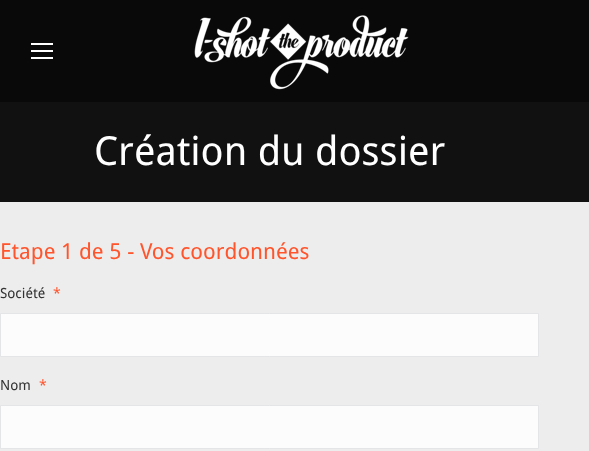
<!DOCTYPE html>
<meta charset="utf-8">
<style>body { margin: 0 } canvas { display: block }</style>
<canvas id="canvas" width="589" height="451"></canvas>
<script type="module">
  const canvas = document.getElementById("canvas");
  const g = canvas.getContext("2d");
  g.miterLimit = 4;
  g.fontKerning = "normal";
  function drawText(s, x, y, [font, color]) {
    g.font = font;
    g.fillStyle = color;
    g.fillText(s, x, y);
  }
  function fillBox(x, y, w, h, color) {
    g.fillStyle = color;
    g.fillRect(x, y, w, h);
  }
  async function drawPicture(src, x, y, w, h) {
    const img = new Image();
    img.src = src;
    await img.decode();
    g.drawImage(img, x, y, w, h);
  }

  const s1 = ["40px Droid Sans", "#FFFFFF"];
  const s2 = ["22px Droid Sans", "#FF542C"];
  const s3 = ["14px Droid Sans", "#333333"];
  const s4 = ["14px Droid Sans", "#FF542C"];

  fillBox(0, 0, 589, 451, "#111111");
  fillBox(0, 0, 589, 102, "#090909");
  fillBox(31, 43, 22, 2, "#FFFFFF");
  fillBox(31, 50, 22, 2, "#FFFFFF");
  fillBox(31, 57, 22, 2, "#FFFFFF");
  await drawPicture("pic1.png", 194, 15, 215, 75);
  drawText("Création du dossier", 94, 165, s1);
  fillBox(0, 202, 589, 249, "#EDEDED");
  drawText("Etape 1 de 5 - Vos coordonnées", 0, 259, s2);
  drawText("Société", 0, 298, s3);
  drawText("*", 53, 298, s4);
  g.fillStyle = "#FCFCFC";
  g.beginPath();
  g.rect(0.5, 313.5, 538, 43);
  g.fill();
  g.strokeStyle = "#E4E5E7";
  g.stroke();
  drawText("Nom", 0, 390, s3);
  drawText("*", 39, 390, s4);
  g.fillStyle = "#FCFCFC";
  g.beginPath();
  g.rect(0.5, 405.5, 538, 43);
  g.fill();
  g.stroke();
</script>
